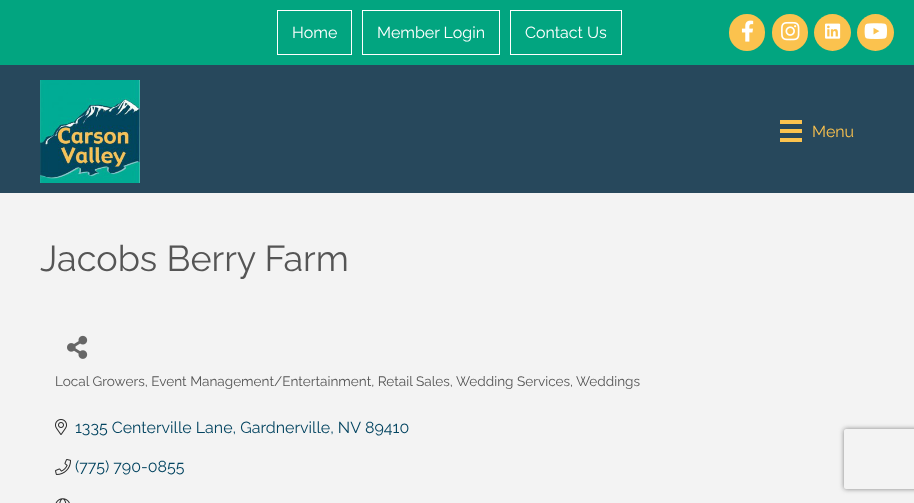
<!DOCTYPE html>
<meta charset="utf-8">
<style>body { margin: 0 } canvas { display: block }</style>
<canvas id="canvas" width="914" height="503"></canvas>
<script type="module">
  const canvas = document.getElementById("canvas");
  const g = canvas.getContext("2d");
  g.miterLimit = 4;
  g.fontKerning = "normal";
  function drawText(s, x, y, [font, color]) {
    g.font = font;
    g.fillStyle = color;
    g.fillText(s, x, y);
  }
  function fillBox(x, y, w, h, color) {
    g.fillStyle = color;
    g.fillRect(x, y, w, h);
  }
  function fillRounded(x, y, w, h, r, color) {
    g.fillStyle = color;
    g.beginPath();
    g.roundRect(x, y, w, h, r);
    g.fill();
  }
  async function drawPicture(src, x, y, w, h) {
    const img = new Image();
    img.src = src;
    await img.decode();
    g.drawImage(img, x, y, w, h);
  }

  const s1 = ["16px Raleway", "#FFFFFF"];
  const s2 = ["16px Raleway", "#FBC24E"];
  const s3 = ["36px Raleway", "#555555"];
  const s4 = ["13.6px Raleway", "#555555"];
  const s5 = ["16px Raleway", "#034460"];

  fillBox(0, 0, 914, 503, "#02A580");
  g.strokeStyle = "#FFFFFF";
  g.strokeRect(277.5, 10.5, 74, 44);
  drawText("Home", 292, 38, s1);
  g.strokeRect(362.5, 10.5, 137, 44);
  drawText("Member Login", 377, 38, s1);
  g.strokeRect(510.5, 10.5, 111, 44);
  drawText("Contact Us", 525, 38, s1);
  fillRounded(729, 14, 36, 37, 18, "#FBC24E");
  await drawPicture("pic1.png", 741, 20, 13, 22);
  fillRounded(772, 14, 36, 37, 18, "#FBC24E");
  await drawPicture("pic2.png", 781, 21, 19, 20);
  g.beginPath();
  g.arc(832.5, 32.5, 18.5, 0, Math.PI * 2);
  g.fill();
  await drawPicture("pic3.png", 825, 23, 16, 16);
  g.beginPath();
  g.arc(875.5, 32.5, 18.5, 0, Math.PI * 2);
  g.fill();
  await drawPicture("pic4.png", 864, 23, 23, 16);
  fillBox(0, 65, 914, 128, "#27485C");
  await drawPicture("pic5.png", 40, 80, 100, 103);
  fillBox(780, 120, 22, 4, "#FBC24E");
  fillBox(780, 129, 22, 4, "#FBC24E");
  fillBox(780, 138, 22, 4, "#FBC24E");
  drawText("Menu", 812, 137, s2);
  fillBox(0, 193, 914, 310, "#F3F3F3");
  drawText("Jacobs Berry Farm", 40, 271, s3);
  await drawPicture("pic6.png", 67, 335, 21, 24);
  drawText("Local Growers, Event Management/Entertainment, Retail Sales,", 55, 386, s4);
  drawText("Wedding Services,", 456, 386, s4);
  drawText("Weddings", 576, 386, s4);
  await drawPicture("pic7.png", 55, 419, 12, 16);
  drawText("1335 Centerville Lane, Gardnerville, NV", 75, 433, s5);
  drawText("89410", 365, 433, s5);
  await drawPicture("pic8.png", 55, 459, 16, 16);
  drawText("(775) 790-0855", 75, 472, s5);
  await drawPicture("pic9.png", 55, 498, 15, 5);
  g.save();
  g.beginPath();
  g.moveTo(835, 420);
  g.lineTo(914, 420);
  g.lineTo(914, 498);
  g.lineTo(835, 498);
  g.closePath();
  g.moveTo(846, 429);
  g.lineTo(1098, 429);
  g.bezierCurveTo(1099, 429, 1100, 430, 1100, 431);
  g.lineTo(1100, 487);
  g.bezierCurveTo(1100, 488, 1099, 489, 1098, 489);
  g.lineTo(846, 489);
  g.bezierCurveTo(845, 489, 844, 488, 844, 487);
  g.lineTo(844, 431);
  g.bezierCurveTo(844, 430, 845, 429, 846, 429);
  g.closePath();
  g.clip("evenodd");
  g.fillStyle = "#808080";
  g.filter = "blur(2.5px)";
  g.beginPath();
  g.roundRect(844, 429, 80, 60, 2);
  g.fill();
  g.filter = "none";
  g.restore();
</script>
